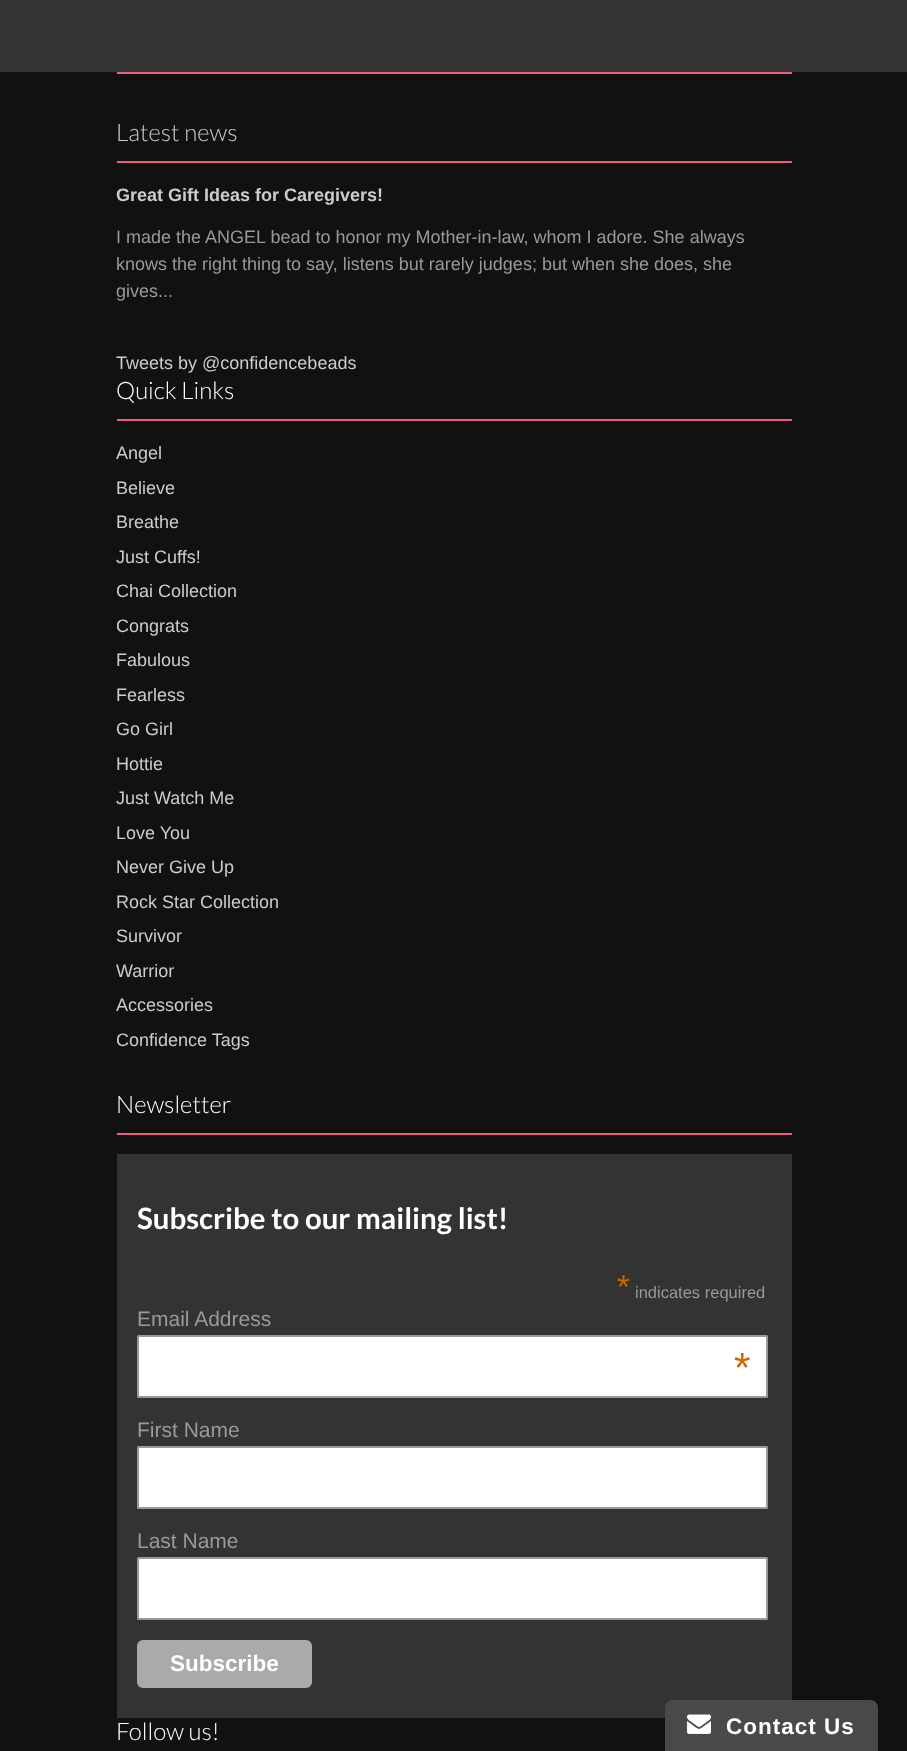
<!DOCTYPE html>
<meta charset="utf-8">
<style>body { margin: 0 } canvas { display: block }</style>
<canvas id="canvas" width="907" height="1751"></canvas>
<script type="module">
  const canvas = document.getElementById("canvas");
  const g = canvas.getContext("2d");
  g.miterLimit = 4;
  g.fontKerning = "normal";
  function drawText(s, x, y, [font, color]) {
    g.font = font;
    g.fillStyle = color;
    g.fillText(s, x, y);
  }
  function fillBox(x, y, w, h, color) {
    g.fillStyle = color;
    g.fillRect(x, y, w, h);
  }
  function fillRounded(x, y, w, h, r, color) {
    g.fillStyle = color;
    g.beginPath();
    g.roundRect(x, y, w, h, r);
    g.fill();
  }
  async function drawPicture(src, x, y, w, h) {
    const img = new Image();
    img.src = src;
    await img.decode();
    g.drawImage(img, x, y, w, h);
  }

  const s1 = ["300 24px Lato", "#CCCCCC"];
  const s2 = ["bold 18px Liberation Sans", "#CCCCCC"];
  const s3 = ["18px Liberation Sans", "#999999"];
  const s4 = ["18px Liberation Sans", "#CCCCCC"];
  const s5 = ["300 24px Lato", "#FFFFFF"];
  const s6 = ["bold 29.4px Lato", "#FFFFFF"];
  const s7 = ["33px Liberation Sans", "#CC6600"];
  const s8 = ["16.5px Liberation Sans", "#999999"];
  const s9 = ["21px Liberation Sans", "#999999"];
  const s10 = ["42px Liberation Sans", "#CC6600"];
  const s11 = ["bold 22.5px Liberation Sans", "#FFFFFF"];

  fillBox(0, 0, 907, 1751, "#333333");
  fillBox(0, 72, 907, 1679, "#111111");
  fillBox(117, 72, 675, 2, "#F15E7C");
  fillBox(117, 161, 675, 2, "#F15E7C");
  drawText("Latest news", 116, 141, s1);
  drawText("Great Gift Ideas for Caregivers!", 116, 201, s2);
  drawText("I made the ANGEL bead to honor my Mother-in-law, whom I adore. She always", 116, 243, s3);
  drawText("knows the right thing to say, listens but rarely judges; but when she does, she", 116, 270, s3);
  drawText("gives...", 116, 297, s3);
  drawText("Tweets by @confidencebeads", 116, 369, s4);
  fillBox(117, 419, 675, 2, "#F15E7C");
  drawText("Quick Links", 116, 399, s5);
  drawText("Angel", 116, 459, s4);
  drawText("Believe", 116, 494, s4);
  drawText("Breathe", 116, 528, s4);
  drawText("Just Cuffs!", 116, 563, s4);
  drawText("Chai Collection", 116, 597, s4);
  drawText("Congrats", 116, 632, s4);
  drawText("Fabulous", 116, 666, s4);
  drawText("Fearless", 116, 701, s4);
  drawText("Go Girl", 116, 735, s4);
  drawText("Hottie", 116, 770, s4);
  drawText("Just Watch Me", 116, 804, s4);
  drawText("Love You", 116, 839, s4);
  drawText("Never Give Up", 116, 873, s4);
  drawText("Rock Star Collection", 116, 908, s4);
  drawText("Survivor", 116, 942, s4);
  drawText("Warrior", 116, 977, s4);
  drawText("Accessories", 116, 1011, s4);
  drawText("Confidence Tags", 116, 1046, s4);
  fillBox(117, 1133, 675, 2, "#F15E7C");
  drawText("Newsletter", 116, 1113, s5);
  fillBox(117, 1154, 675, 564, "#333333");
  drawText("Subscribe to our mailing list!", 137, 1229, s6);
  drawText("*", 617, 1298, s7);
  drawText("indicates required", 635, 1298, s8);
  drawText("Email Address", 137, 1326, s9);
  g.fillStyle = "#FFFFFF";
  g.beginPath();
  g.roundRect(138, 1336, 629, 61, 0.5);
  g.fill();
  g.strokeStyle = "#999999";
  g.lineWidth = 2;
  g.stroke();
  drawText("*", 734, 1382, s10);
  drawText("First Name", 137, 1437, s9);
  g.fillStyle = "#FFFFFF";
  g.beginPath();
  g.roundRect(138, 1447, 629, 61, 0.5);
  g.fill();
  g.stroke();
  drawText("Last Name", 137, 1548, s9);
  g.fillStyle = "#FFFFFF";
  g.beginPath();
  g.roundRect(138, 1558, 629, 61, 0.5);
  g.fill();
  g.stroke();
  fillRounded(137, 1640, 175, 48, 6, "#AAAAAA");
  drawText("Subscribe", 170, 1671, s11);
  drawText("Follow us!", 116, 1740, s5);
  g.fillStyle = "#494949";
  g.beginPath();
  g.moveTo(673, 1700);
  g.lineTo(870, 1700);
  g.bezierCurveTo(874.5, 1700, 878, 1703.5, 878, 1708);
  g.lineTo(878, 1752);
  g.lineTo(665, 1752);
  g.lineTo(665, 1708);
  g.bezierCurveTo(665, 1703.5, 668.5, 1700, 673, 1700);
  g.closePath();
  g.fill();
  await drawPicture("pic1.png", 686, 1714, 25, 20);
  g.letterSpacing = "1px";
  drawText("Contact Us", 726, 1734, s11);
</script>
